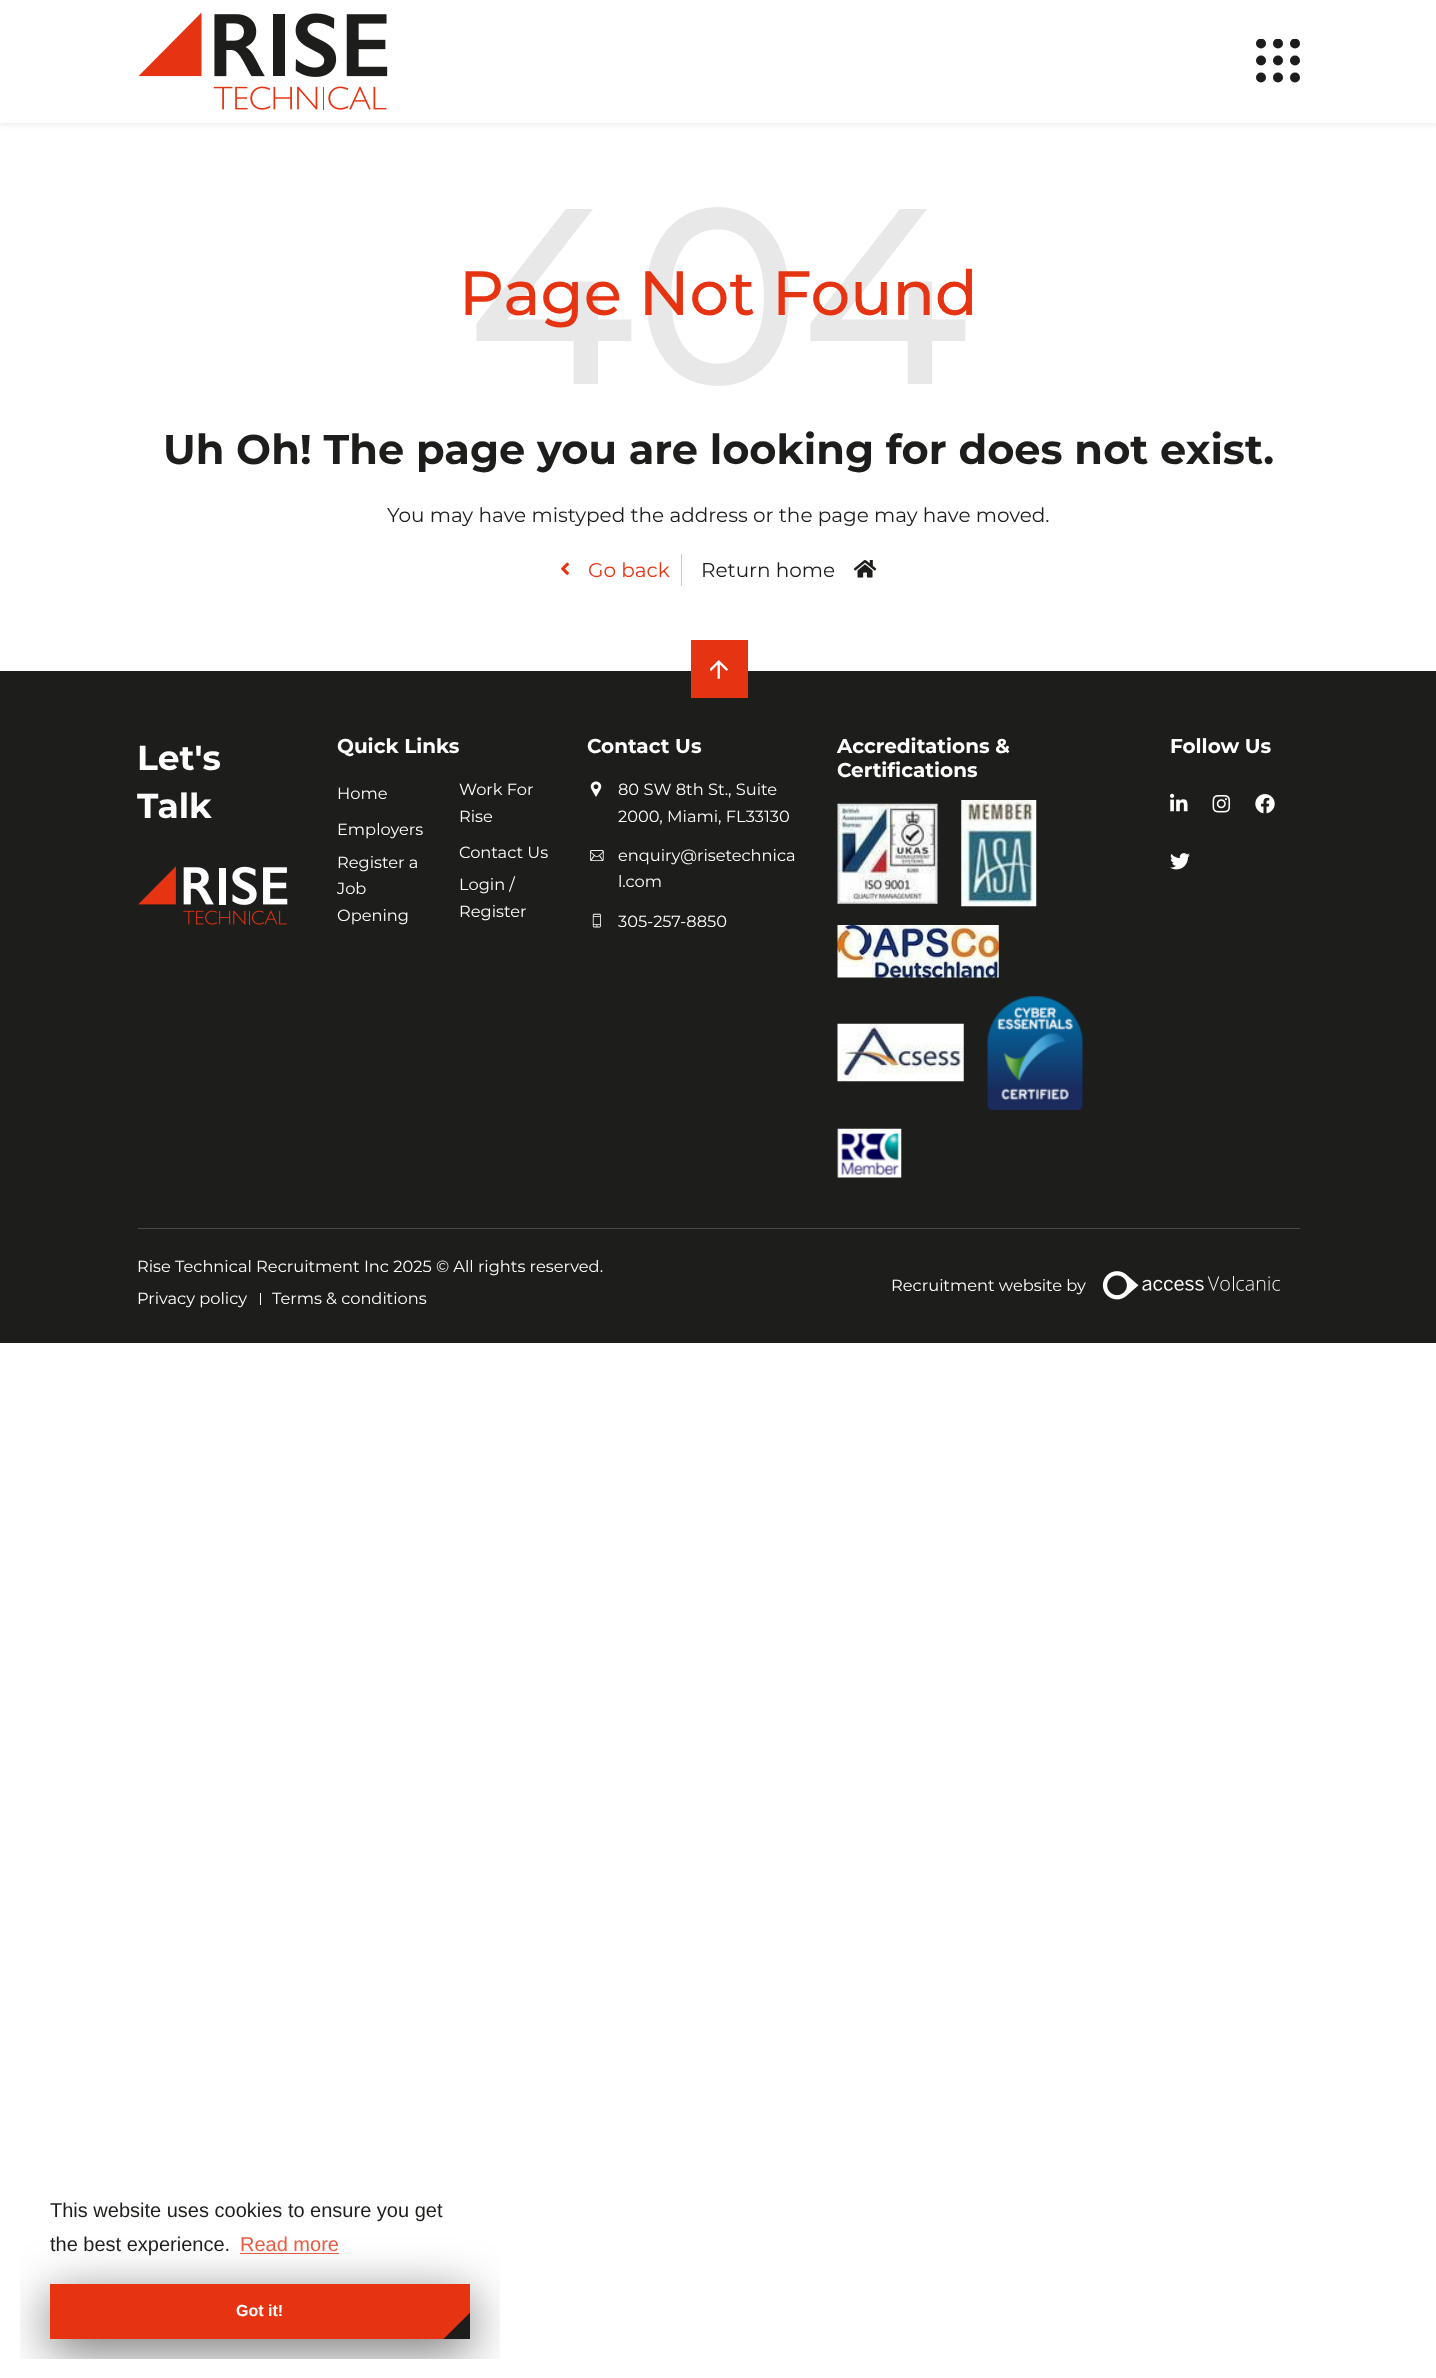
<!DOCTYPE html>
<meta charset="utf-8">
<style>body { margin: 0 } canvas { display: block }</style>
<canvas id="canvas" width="1436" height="2378"></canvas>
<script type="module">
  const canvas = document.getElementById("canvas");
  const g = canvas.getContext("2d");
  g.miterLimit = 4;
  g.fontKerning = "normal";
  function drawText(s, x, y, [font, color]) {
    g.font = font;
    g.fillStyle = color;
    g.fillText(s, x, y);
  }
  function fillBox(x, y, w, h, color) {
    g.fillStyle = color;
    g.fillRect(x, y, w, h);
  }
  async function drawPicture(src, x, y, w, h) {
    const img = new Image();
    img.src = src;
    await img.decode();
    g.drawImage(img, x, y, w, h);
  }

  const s1 = ["500 250px Montserrat", "#E8E8E8"];
  const s2 = ["500 62.5px Montserrat", "#E63312"];
  const s3 = ["bold 41.5px Montserrat", "#1D1D1B"];
  const s4 = ["20px Montserrat", "#1D1D1B"];
  const s5 = ["20px Montserrat", "#E63312"];
  const s6 = ["bold 34.5px Montserrat", "#FFFFFF"];
  const s7 = ["bold 20px Montserrat", "#FFFFFF"];
  const s8 = ["16.25px Montserrat", "#FFFFFF"];
  const s9 = ["20px Liberation Sans", "#1D1D1B"];
  const s10 = ["20px Liberation Sans", "#EB5C41"];
  const s11 = ["bold 16px Liberation Sans", "#FFFFFF"];

  fillBox(0, 0, 1436, 2378, "#FFFFFF");
  g.fillStyle = "rgba(0, 0, 0, 0.1)";
  g.filter = "blur(3px)";
  g.beginPath();
  g.rect(0, 1, 1436, 123);
  g.fill();
  g.filter = "none";
  fillBox(0, 0, 1436, 123, "#FFFFFF");
  await drawPicture("pic1.png", 138, 13, 250, 97);
  g.save();
  g.beginPath();
  g.rect(1256, 39, 44, 45);
  g.clip();
  g.fillStyle = "#1D1D1B";
  g.beginPath();
  g.arc(1261, 43.5, 5, 0, Math.PI * 2);
  g.fill();
  g.beginPath();
  g.arc(1278, 43.5, 5, 0, Math.PI * 2);
  g.fill();
  g.beginPath();
  g.arc(1295, 43.5, 5, 0, Math.PI * 2);
  g.fill();
  g.restore();
  g.fillStyle = "#1D1D1B";
  g.beginPath();
  g.arc(1261, 60.5, 5, 0, Math.PI * 2);
  g.fill();
  g.beginPath();
  g.arc(1278, 60.5, 5, 0, Math.PI * 2);
  g.fill();
  g.beginPath();
  g.arc(1295, 60.5, 5, 0, Math.PI * 2);
  g.fill();
  g.beginPath();
  g.arc(1261, 77.5, 5, 0, Math.PI * 2);
  g.fill();
  g.beginPath();
  g.arc(1278, 77.5, 5, 0, Math.PI * 2);
  g.fill();
  g.beginPath();
  g.arc(1295, 77.5, 5, 0, Math.PI * 2);
  g.fill();
  drawText("404", 467, 384, s1);
  drawText("Page Not Found", 459, 315, s2);
  drawText("Uh Oh! The page you are looking for does not exist.", 163, 464, s3);
  drawText("You may have mistyped the address or the page may have moved.", 387, 522, s4);
  fillBox(681, 554, 1, 32, "#CCCCCC");
  await drawPicture("pic2.png", 561, 562, 8, 13);
  drawText("Go back", 588, 577, s5);
  drawText("Return home", 701, 577, s4);
  await drawPicture("pic3.png", 853, 560, 24, 18);
  fillBox(0, 671, 1436, 672, "#1D1D1B");
  fillBox(691, 640, 57, 58, "#E63312");
  await drawPicture("pic4.png", 710, 660, 18, 19);
  drawText("Let's", 137, 770, s6);
  drawText("Talk", 137, 818, s6);
  await drawPicture("pic5.png", 138, 866, 150, 59);
  drawText("Quick Links", 337, 753, s7);
  drawText("Home", 337, 799, s8);
  drawText("Work For", 459, 795, s8);
  drawText("Rise", 459, 822, s8);
  drawText("Employers", 337, 835, s8);
  drawText("Contact Us", 459, 858, s8);
  drawText("Register a", 337, 868, s8);
  drawText("Job", 337, 894, s8);
  drawText("Opening", 337, 921, s8);
  drawText("Login /", 459, 890, s8);
  drawText("Register", 459, 917, s8);
  drawText("Contact Us", 587, 753, s7);
  await drawPicture("pic6.png", 590, 781, 12, 16);
  drawText("80 SW 8th St., Suite", 618, 795, s8);
  drawText("2000, Miami, FL33130", 618, 822, s8);
  await drawPicture("pic7.png", 590, 850, 14, 11);
  drawText("enquiry@risetechnica", 618, 861, s8);
  drawText("l.com", 618, 887, s8);
  await drawPicture("pic8.png", 592, 913, 9, 15);
  drawText("305-257-8850", 618, 927, s8);
  drawText("Accreditations &", 837, 753, s7);
  drawText("Certifications", 837, 777, s7);
  await drawPicture("pic9.png", 837, 803, 101, 101);
  await drawPicture("pic10.png", 961, 800, 76, 107);
  await drawPicture("pic11.png", 837, 925, 162, 53);
  await drawPicture("pic12.png", 837, 1023, 127, 59);
  await drawPicture("pic13.png", 987, 996, 96, 114);
  await drawPicture("pic14.png", 837, 1128, 65, 50);
  drawText("Follow Us", 1170, 753, s7);
  await drawPicture("pic15.png", 1170, 793, 18, 19);
  await drawPicture("pic16.png", 1212, 795, 19, 18);
  await drawPicture("pic17.png", 1255, 794, 20, 20);
  await drawPicture("pic18.png", 1170, 853, 20, 17);
  fillBox(138, 1228, 1162, 1, "#4A4A49");
  drawText("Rise Technical Recruitment Inc 2025 © All rights reserved.", 137, 1272, s8);
  drawText("Privacy policy", 137, 1304, s8);
  fillBox(260, 1293, 1, 12, "#FFFFFF");
  drawText("Terms & conditions", 272, 1304, s8);
  drawText("Recruitment website by", 891, 1291, s8);
  await drawPicture("pic19.png", 1102, 1271, 178, 29);
  drawText("This website uses cookies to ensure you get", 50, 2217, s9);
  drawText("the best experience.", 50, 2251, s9);
  drawText("Read more", 240, 2251, s10);
  fillBox(240, 2253, 99, 1, "#EB5C41");
  g.save();
  g.beginPath();
  g.rect(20, 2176, 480, 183);
  g.clip();
  g.fillStyle = "#717171";
  g.filter = "blur(25px)";
  g.beginPath();
  g.rect(50, 2296, 420, 55);
  g.fill();
  g.filter = "none";
  g.restore();
  fillBox(50, 2284, 420, 55, "#E63312");
  drawText("Got it!", 236, 2316, s11);
  g.save();
  g.beginPath();
  g.rect(50, 2284, 420, 55);
  g.clip();
  g.fillStyle = "#1D1D1B";
  g.beginPath();
  g.moveTo(390, 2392);
  g.lineTo(505, 2278);
  g.lineTo(637, 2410);
  g.lineTo(523, 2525);
  g.closePath();
  g.fill();
  g.restore();
</script>
